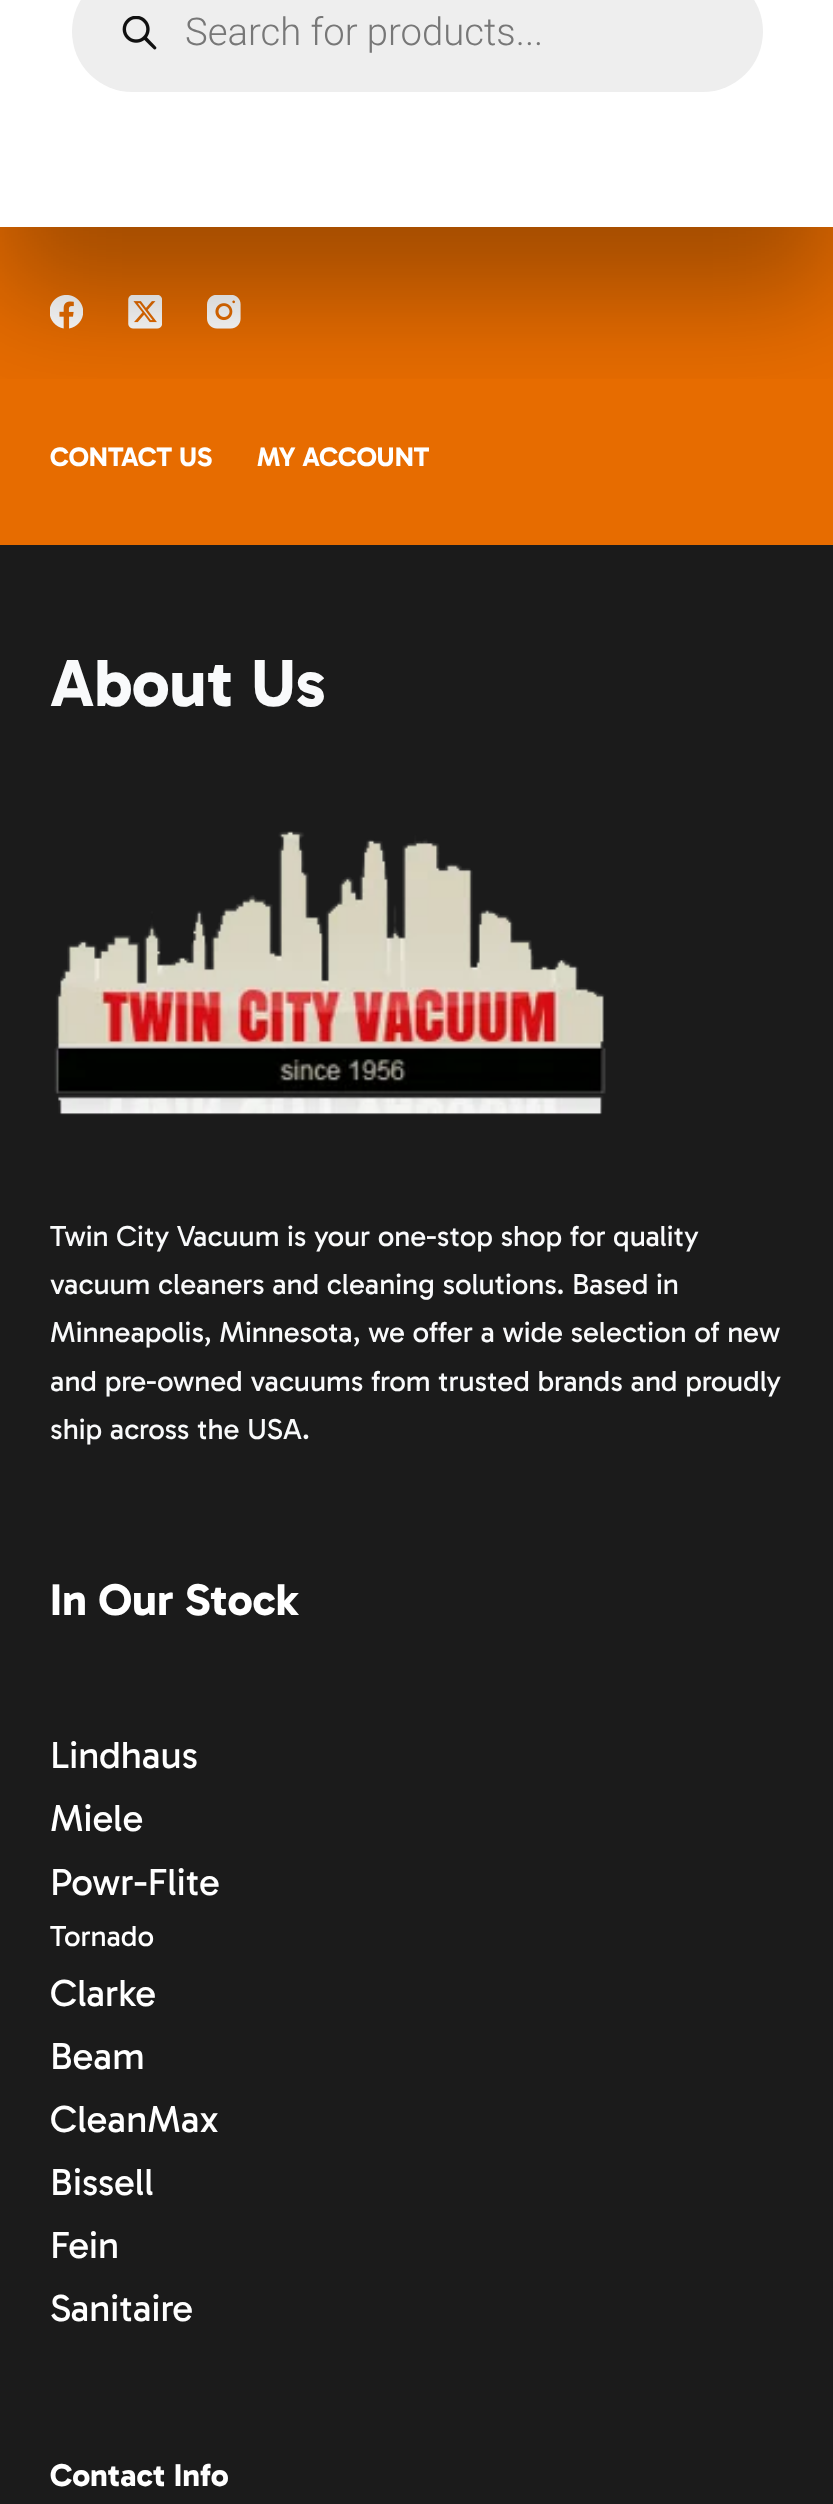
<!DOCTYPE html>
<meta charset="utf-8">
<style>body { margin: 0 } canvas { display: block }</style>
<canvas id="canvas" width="833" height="2504"></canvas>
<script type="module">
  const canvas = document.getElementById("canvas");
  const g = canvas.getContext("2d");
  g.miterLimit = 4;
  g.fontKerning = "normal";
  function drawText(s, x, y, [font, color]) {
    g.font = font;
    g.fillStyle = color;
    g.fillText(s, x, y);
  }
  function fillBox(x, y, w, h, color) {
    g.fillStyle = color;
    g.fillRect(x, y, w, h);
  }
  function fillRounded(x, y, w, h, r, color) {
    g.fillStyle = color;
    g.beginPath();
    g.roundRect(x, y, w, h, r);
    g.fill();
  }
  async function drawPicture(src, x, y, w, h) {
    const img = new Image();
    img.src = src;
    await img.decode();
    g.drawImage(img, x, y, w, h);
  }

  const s1 = ["300 38.25px Roboto", "#777777"];
  const s2 = ["bold 27px Gabarito", "#FFFFFF"];
  const s3 = ["bold 67.5px Gabarito", "#F9FAFB"];
  const s4 = ["29.25px Gabarito", "#F9FAFB"];
  const s5 = ["bold 45px Gabarito", "#FFFFFF"];
  const s6 = ["38.25px Gabarito", "#FFFFFF"];
  const s7 = ["29.25px Gabarito", "#FFFFFF"];
  const s8 = ["bold 32px Gabarito", "#FFFFFF"];

  fillBox(0, 0, 833, 2504, "#FFFFFF");
  fillBox(0, 227, 833, 318, "#E76C00");
  await drawPicture("pic2.png", 50, 295, 33, 34);
  await drawPicture("pic3.png", 128, 295, 34, 34);
  await drawPicture("pic4.png", 207, 295, 34, 34);
  g.save();
  g.beginPath();
  g.rect(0, 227, 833, 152);
  g.clip();
  g.fillStyle = "rgba(0, 0, 0, 0.3)";
  g.filter = "blur(56px)";
  g.beginPath();
  g.rect(0, -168, 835, 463);
  g.fill();
  g.filter = "none";
  g.restore();
  fillRounded(72, -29, 691, 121, 60.5, "#EEEEEE");
  await drawPicture("pic1.png", 122, 16, 35, 34);
  drawText("Search for products...", 185, 45, s1);
  fillBox(0, 545, 833, 1959, "#1B1B1B");
  drawText("CONTACT US", 50, 466, s2);
  drawText("MY ACCOUNT", 257, 466, s2);
  drawText("About Us", 50, 706, s3);
  await drawPicture("pic5.png", 54, 831, 552, 284);
  drawText("Twin City Vacuum is your one-stop shop for quality", 50, 1246, s4);
  drawText("vacuum cleaners and cleaning solutions. Based in", 50, 1294, s4);
  drawText("Minneapolis, Minnesota, we offer a wide selection of new", 50, 1342, s4);
  drawText("and pre-owned vacuums from trusted brands and proudly", 50, 1391, s4);
  drawText("ship across the USA.", 50, 1439, s4);
  drawText("In Our Stock", 50, 1615, s5);
  drawText("Lindhaus", 50, 1768, s6);
  drawText("Miele", 50, 1831, s6);
  drawText("Powr-Flite", 50, 1895, s6);
  drawText("Tornado", 50, 1946, s7);
  drawText("Clarke", 50, 2006, s6);
  drawText("Beam", 50, 2069, s6);
  drawText("CleanMax", 50, 2132, s6);
  drawText("Bissell", 50, 2195, s6);
  drawText("Fein", 50, 2258, s6);
  drawText("Sanitaire", 50, 2321, s6);
  drawText("Contact Info", 50, 2486, s8);
</script>
